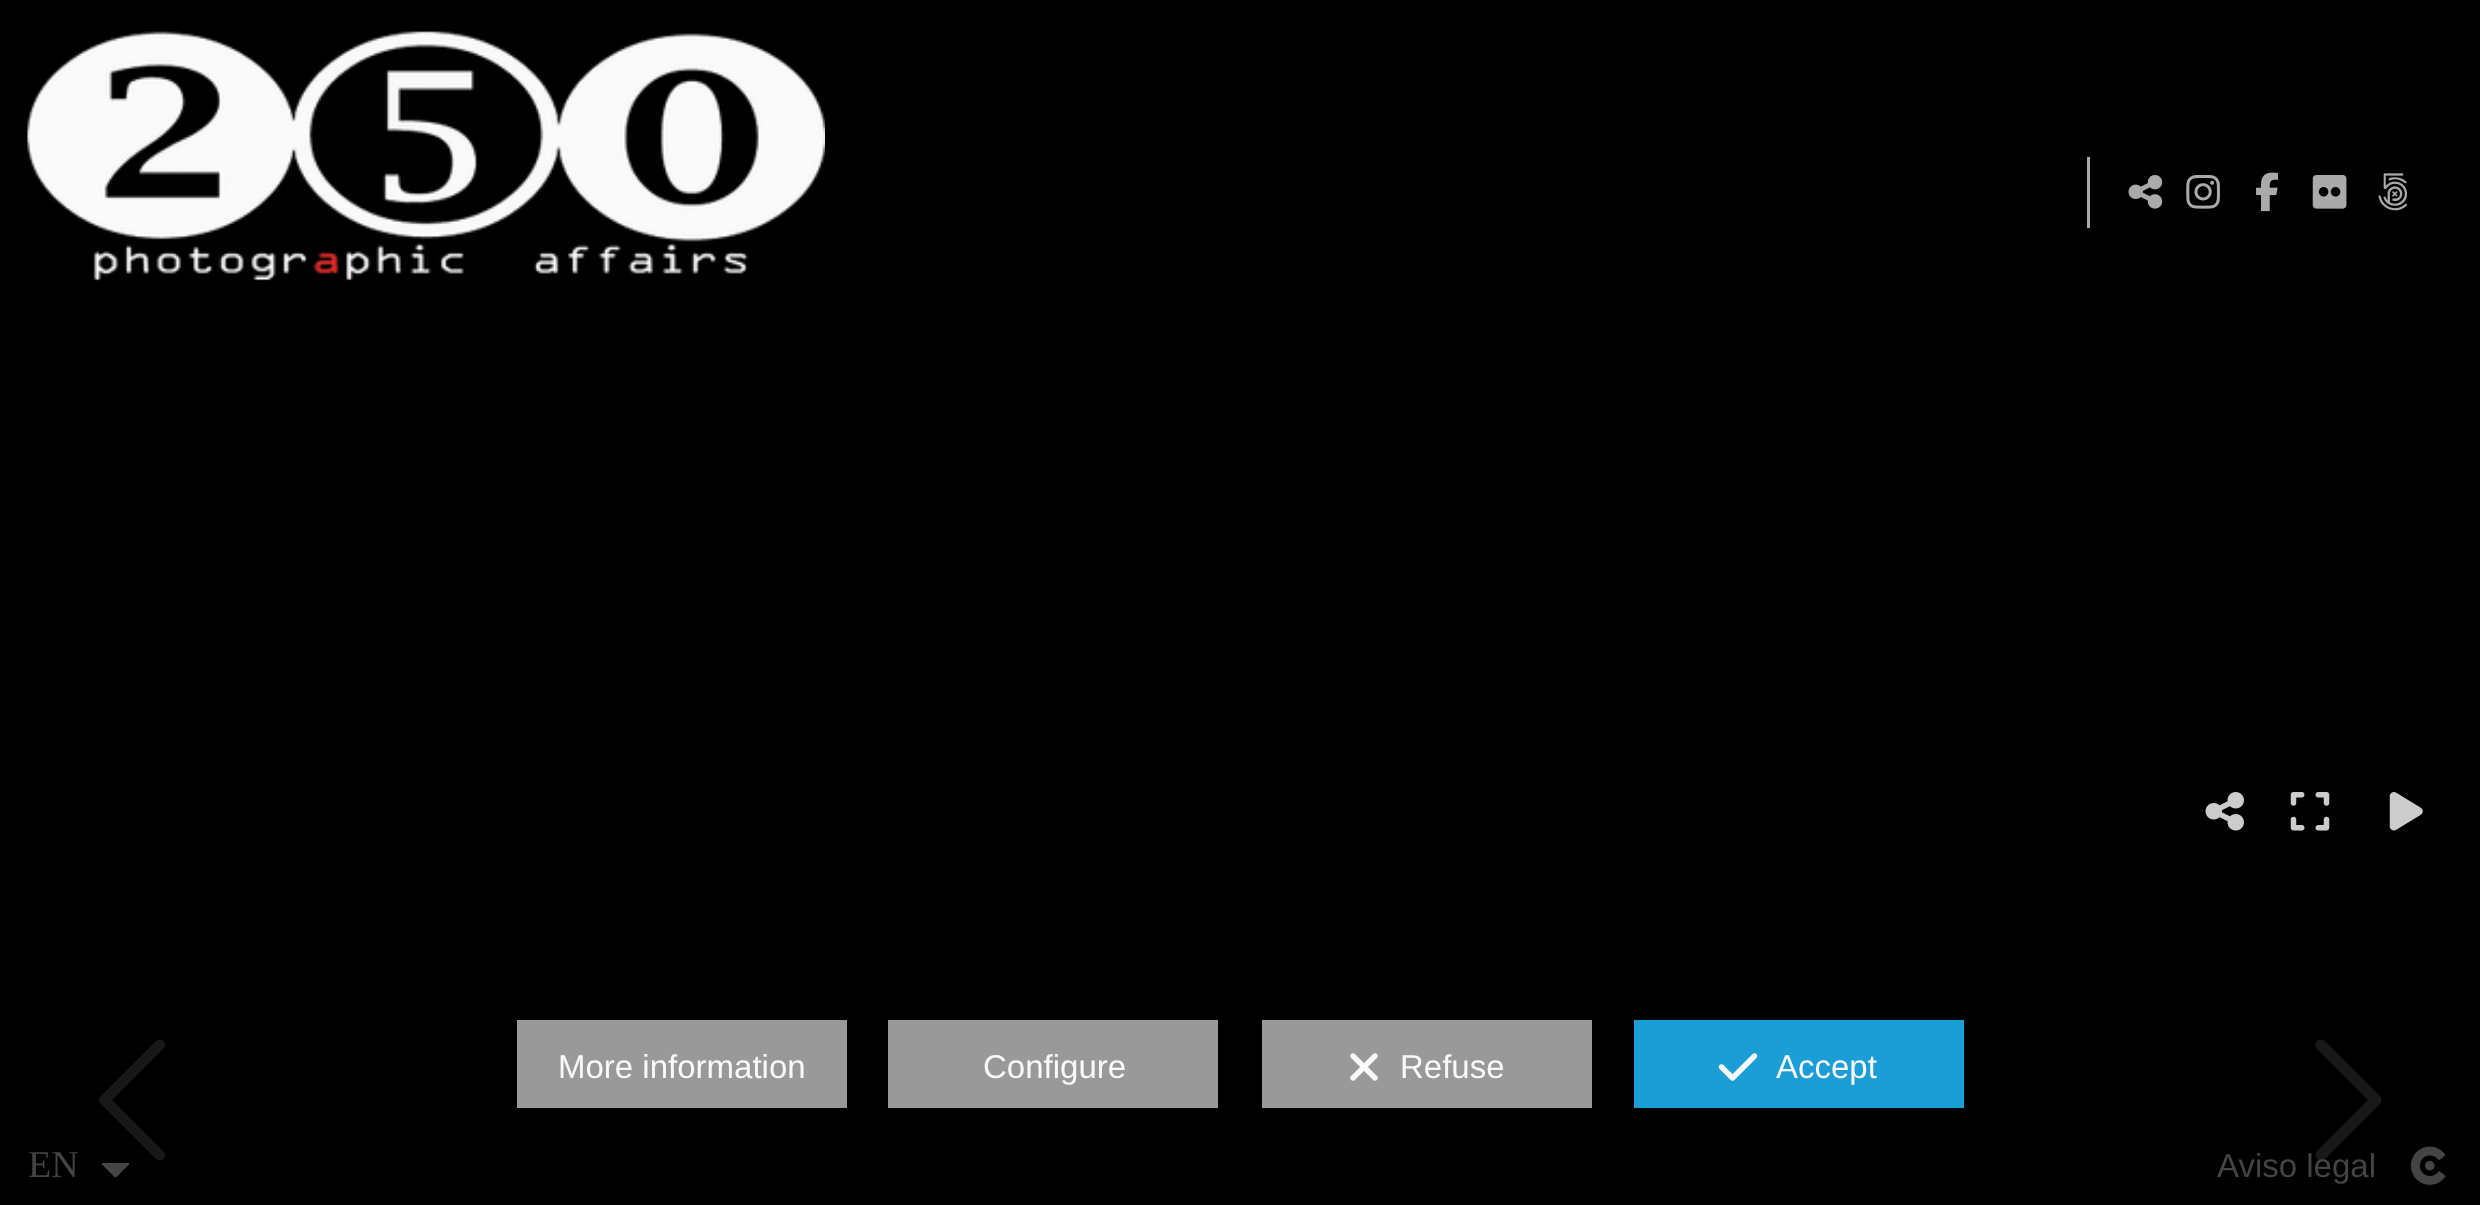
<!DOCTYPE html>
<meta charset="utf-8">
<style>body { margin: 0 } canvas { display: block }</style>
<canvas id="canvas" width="2480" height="1205"></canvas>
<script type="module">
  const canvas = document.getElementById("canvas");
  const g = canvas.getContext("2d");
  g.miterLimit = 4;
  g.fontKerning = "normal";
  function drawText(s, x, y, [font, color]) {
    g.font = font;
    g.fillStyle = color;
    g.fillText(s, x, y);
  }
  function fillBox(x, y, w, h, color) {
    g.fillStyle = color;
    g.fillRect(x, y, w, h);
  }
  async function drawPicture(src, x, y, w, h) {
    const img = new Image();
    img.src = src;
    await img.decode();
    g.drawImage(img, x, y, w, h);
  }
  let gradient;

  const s1 = ["33px Liberation Sans", "#F9F9F9"];
  const s2 = ["33px Liberation Sans", "#444444"];
  const s3 = ["38px Liberation Serif", "#444444"];

  fillBox(0, 0, 2480, 1205, "#000000");
  fillBox(517, 1020, 330, 88, "#999999");
  drawText("More information", 558, 1078, s1);
  fillBox(888, 1020, 330, 88, "#999999");
  drawText("Configure", 983, 1078, s1);
  fillBox(1262, 1020, 330, 88, "#999999");
  await drawPicture("pic1.png", 1350, 1053, 28, 28);
  drawText("Refuse", 1400, 1078, s1);
  fillBox(1634, 1020, 330, 88, "#1A9ED5");
  await drawPicture("pic2.png", 1718, 1053, 40, 28);
  drawText("Accept", 1776, 1078, s1);
  await drawPicture("pic3.png", 27, 31, 798, 250);
  fillBox(2087, 157, 3, 71, "#AAAAAA");
  await drawPicture("pic4.png", 2128, 175, 35, 34);
  await drawPicture("pic5.png", 2186, 175, 34, 34);
  await drawPicture("pic6.png", 2256, 172, 22, 40);
  await drawPicture("pic7.png", 2312, 175, 35, 34);
  await drawPicture("pic8.png", 2378, 173, 30, 38);
  await drawPicture("pic9.png", 2205, 792, 39, 39);
  await drawPicture("pic10.png", 2290, 792, 40, 39);
  await drawPicture("pic11.png", 2389, 792, 34, 39);
  g.fillStyle = "#181818";
  g.beginPath();
  g.moveTo(101, 1104);
  g.bezierCurveTo(98, 1101, 98, 1099, 101, 1096);
  g.lineTo(156, 1041);
  g.bezierCurveTo(158, 1039, 161, 1039, 163, 1041);
  g.bezierCurveTo(166, 1044, 166, 1046, 163, 1049);
  g.lineTo(112, 1100);
  g.lineTo(163, 1151);
  g.bezierCurveTo(166, 1154, 166, 1156, 163, 1159);
  g.bezierCurveTo(161, 1161, 158, 1161, 156, 1159);
  g.closePath();
  g.fill();
  drawText("Aviso legal", 2217, 1177, s2);
  g.fillStyle = "rgba(82, 82, 82, 0.3)";
  g.beginPath();
  g.moveTo(2380, 1096);
  g.bezierCurveTo(2382, 1099, 2382, 1101, 2380, 1104);
  g.lineTo(2325, 1159);
  g.bezierCurveTo(2322, 1161, 2320, 1161, 2317, 1159);
  g.bezierCurveTo(2315, 1156, 2315, 1154, 2317, 1151);
  g.lineTo(2368, 1100);
  g.lineTo(2317, 1049);
  g.bezierCurveTo(2315, 1046, 2315, 1044, 2317, 1041);
  g.bezierCurveTo(2320, 1039, 2322, 1039, 2325, 1041);
  g.closePath();
  g.fill();
  gradient = g.createLinearGradient(116, 1164, 129, 1178);
  gradient.addColorStop(0.5, "#444444");
  gradient.addColorStop(0.5, "#000000");
  g.fillStyle = gradient;
  g.fillRect(116, 1163, 13, 14);
  gradient = g.createLinearGradient(102, 1178, 116, 1164);
  gradient.addColorStop(0.5, "#000000");
  gradient.addColorStop(0.5, "#444444");
  g.fillStyle = gradient;
  g.fillRect(102, 1163, 14, 14);
  drawText("EN", 28, 1177, s3);
  await drawPicture("pic12.png", 2410, 1146, 36, 39);
</script>
